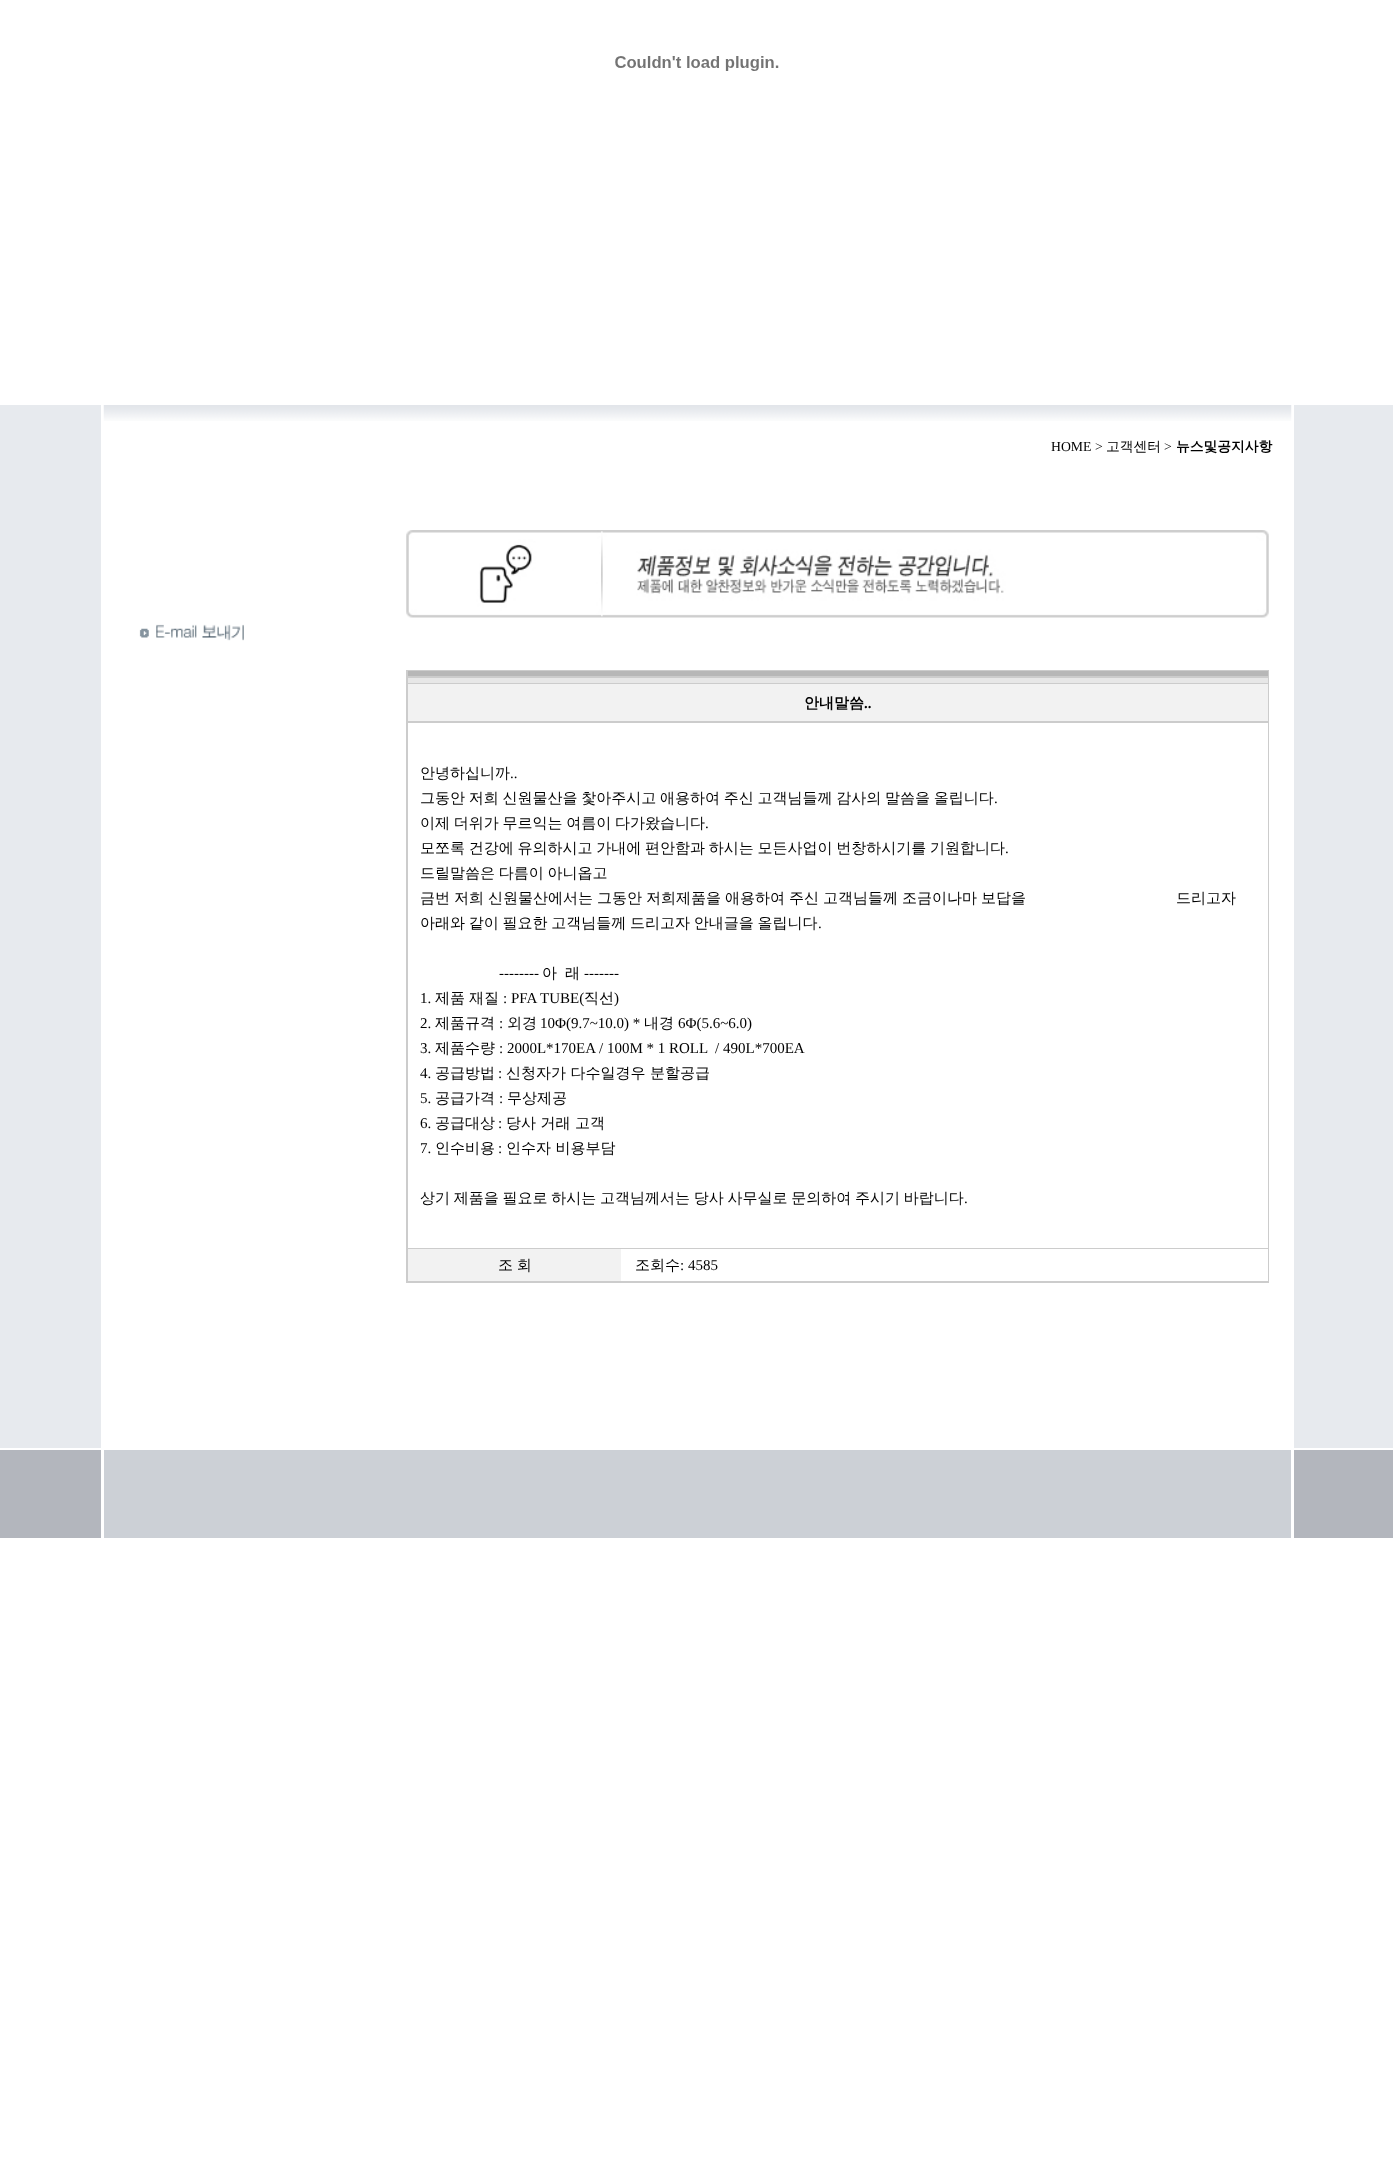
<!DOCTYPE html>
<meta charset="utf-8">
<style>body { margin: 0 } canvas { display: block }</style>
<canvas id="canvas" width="1393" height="2178"></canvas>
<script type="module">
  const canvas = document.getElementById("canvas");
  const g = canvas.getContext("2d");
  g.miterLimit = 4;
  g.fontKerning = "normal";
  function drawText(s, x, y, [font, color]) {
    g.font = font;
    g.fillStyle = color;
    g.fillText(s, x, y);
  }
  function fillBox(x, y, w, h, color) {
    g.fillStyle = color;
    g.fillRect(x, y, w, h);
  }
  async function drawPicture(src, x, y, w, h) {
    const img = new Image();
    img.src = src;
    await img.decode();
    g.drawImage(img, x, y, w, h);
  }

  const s1 = ["13.75px Liberation Serif", "#000000"];
  const s2 = ["500 13.75px WenQuanYi Zen Hei", "#000000"];
  const s3 = ["bold 13.75px WenQuanYi Zen Hei", "#000000"];
  const s4 = ["bold 15px WenQuanYi Zen Hei", "#000000"];
  const s5 = ["bold 15px Liberation Serif", "#000000"];
  const s6 = ["500 15px WenQuanYi Zen Hei", "#000000"];
  const s7 = ["15px Liberation Serif", "#000000"];

  fillBox(0, 0, 1393, 2178, "#FFFFFF");
  await drawPicture("pic1.png", 615, 56, 164, 15);
  fillBox(0, 405, 101, 1043, "#E7EAEE");
  await drawPicture("pic2.png", 103, 405, 1189, 16);
  await drawPicture("pic3.png", 139, 624, 105, 17);
  drawText("HOME >", 1051, 451, s1);
  drawText("고객센터", 1106, 451, s2);
  drawText(">", 1164, 451, s1);
  drawText("뉴스및공지사항", 1176, 451, s3);
  await drawPicture("pic4.png", 406, 530, 863, 88);
  fillBox(406, 670, 863, 613, "#CCCCCC");
  fillBox(408, 671, 860, 5, "#B7B7B7");
  fillBox(408, 678, 860, 5, "#E7E7E7");
  fillBox(408, 684, 860, 37, "#F2F2F2");
  drawText("안내말씀", 804, 708, s4);
  drawText("..", 864, 708, s5);
  fillBox(408, 723, 860, 525, "#FFFFFF");
  drawText("안녕하십니까", 420, 778, s6);
  drawText("..", 510, 778, s7);
  g.wordSpacing = "-0.75px";
  drawText("그동안 저희 신원물산을 찿아주시고 애용하여 주신 고객님들께 감사의 말씀을 올립니다", 420, 803, s6);
  g.wordSpacing = "0px";
  drawText(".", 994, 803, s7);
  g.wordSpacing = "-0.75px";
  drawText("이제 더위가 무르익는 여름이 다가왔습니다", 420, 828, s6);
  g.wordSpacing = "0px";
  drawText(".", 705, 828, s7);
  g.wordSpacing = "-0.75px";
  drawText("모쪼록 건강에 유의하시고 가내에 편안함과 하시는 모든사업이 번창하시기를 기원합니다", 420, 853, s6);
  g.wordSpacing = "0px";
  drawText(".", 1005, 853, s7);
  g.wordSpacing = "-0.75px";
  drawText("드릴말씀은 다름이 아니옵고", 420, 878, s6);
  g.wordSpacing = "-0.5px";
  drawText("금번 저희 신원물산에서는 그동안 저희제품을 애용하여 주신 고객님들께 조금이나마 보답을", 420, 903, s6);
  g.wordSpacing = "0px";
  drawText("드리고자", 1176, 903, s6);
  g.wordSpacing = "-0.75px";
  drawText("아래와 같이 필요한 고객님들께 드리고자 안내글을 올립니다", 420, 928, s6);
  g.wordSpacing = "0px";
  drawText(".", 818, 928, s7);
  drawText("--------", 499, 978, s7);
  drawText("아", 542, 978, s6);
  drawText("래", 565, 978, s6);
  drawText("-------", 584, 978, s7);
  drawText("1.", 420, 1003, s7);
  drawText("제품", 435, 1003, s6);
  drawText("재질", 469, 1003, s6);
  drawText(": PFA TUBE(", 503, 1003, s7);
  drawText("직선", 584, 1003, s6);
  drawText(")", 614, 1003, s7);
  drawText("2.", 420, 1028, s7);
  drawText("제품규격", 435, 1028, s6);
  drawText(":", 499, 1028, s7);
  drawText("외경", 507, 1028, s6);
  drawText("10Φ(9.7~10.0) *", 540, 1028, s7);
  drawText("내경", 644, 1028, s6);
  drawText("6Φ(5.6~6.0)", 678, 1028, s7);
  drawText("3.", 420, 1053, s7);
  drawText("제품수량", 435, 1053, s6);
  drawText(": 2000L*170EA / 100M * 1 ROLL  / 490L*700EA", 499, 1053, s7);
  drawText("4.", 420, 1078, s7);
  drawText("공급방법", 435, 1078, s6);
  drawText(":", 498, 1078, s7);
  drawText("신청자가 다수일경우 분할공급", 506, 1078, s6);
  drawText("5.", 420, 1103, s7);
  drawText("공급가격", 435, 1103, s6);
  drawText(":", 499, 1103, s7);
  drawText("무상제공", 507, 1103, s6);
  drawText("6.", 420, 1128, s7);
  drawText("공급대상", 435, 1128, s6);
  drawText(":", 498, 1128, s7);
  drawText("당사 거래 고객", 506, 1128, s6);
  drawText("7.", 420, 1153, s7);
  drawText("인수비용", 435, 1153, s6);
  drawText(":", 498, 1153, s7);
  drawText("인수자 비용부담", 506, 1153, s6);
  g.wordSpacing = "-0.75px";
  drawText("상기 제품을 필요로 하시는 고객님께서는 당사 사무실로 문의하여 주시기 바랍니다", 420, 1203, s6);
  g.wordSpacing = "0px";
  drawText(".", 964, 1203, s7);
  fillBox(621, 1249, 647, 32, "#FFFFFF");
  fillBox(408, 1249, 213, 32, "#F2F2F2");
  g.wordSpacing = "-0.75px";
  drawText("조 회", 498, 1270, s6);
  g.wordSpacing = "0px";
  drawText("조회수", 635, 1270, s6);
  drawText(": 4585", 680, 1270, s7);
  fillBox(1294, 405, 99, 1043, "#E7EAEE");
  fillBox(0, 1450, 101, 88, "#B3B6BD");
  fillBox(104, 1450, 1187, 88, "#CCD0D6");
  fillBox(1294, 1450, 99, 88, "#B3B6BD");
</script>
